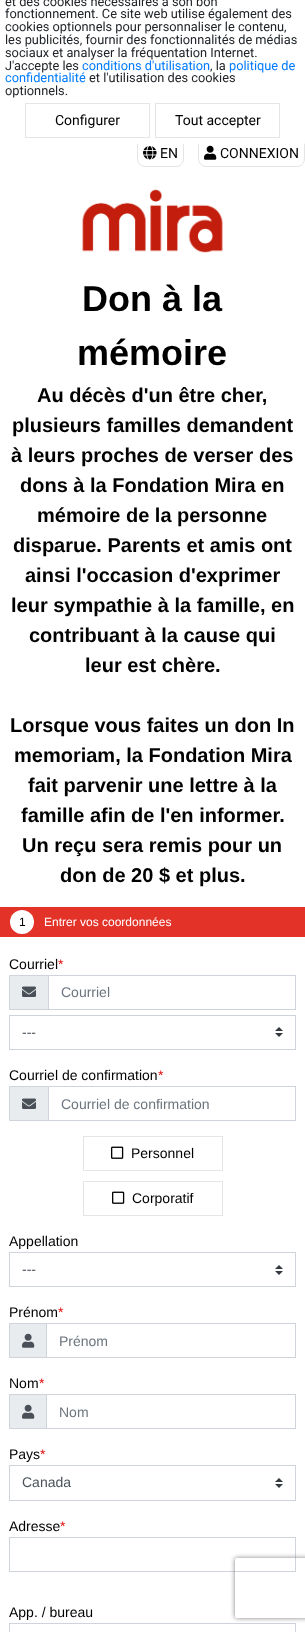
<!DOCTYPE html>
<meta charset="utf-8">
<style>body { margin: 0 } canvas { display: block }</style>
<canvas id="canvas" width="305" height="1632"></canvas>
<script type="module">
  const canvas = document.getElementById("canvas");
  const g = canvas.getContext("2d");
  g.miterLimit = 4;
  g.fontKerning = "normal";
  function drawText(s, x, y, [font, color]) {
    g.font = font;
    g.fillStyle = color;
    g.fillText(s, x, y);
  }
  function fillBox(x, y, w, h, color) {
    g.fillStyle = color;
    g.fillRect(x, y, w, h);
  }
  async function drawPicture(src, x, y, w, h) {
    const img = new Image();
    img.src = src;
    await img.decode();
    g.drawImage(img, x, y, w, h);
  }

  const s1 = ["12.8px Roboto", "#212529"];
  const s2 = ["12.8px Roboto", "#007BFF"];
  const s3 = ["14px Roboto", "#000000"];
  const s4 = ["bold 36px Liberation Sans", "#000000"];
  const s5 = ["bold 20px Liberation Sans", "#000000"];
  const s6 = ["12px Liberation Sans", "#000000"];
  const s7 = ["12px Liberation Sans", "#FFFFFF"];
  const s8 = ["14px Liberation Sans", "#000000"];
  const s9 = ["14px Liberation Sans", "#DD0000"];
  const s10 = ["14px Liberation Sans", "#6C757D"];
  const s11 = ["14px Liberation Sans", "#495057"];

  fillBox(0, 0, 305, 1632, "#FFFFFF");
  g.beginPath();
  g.roundRect(137.5, 140.5, 46, 26, [0, 0, 7.5, 7.5]);
  g.strokeStyle = "#E5E5E5";
  g.stroke();
  g.beginPath();
  g.roundRect(198.5, 140.5, 106, 26, [0, 0, 7.5, 7.5]);
  g.stroke();
  fillBox(137, 143, 168, 1, "rgba(255, 255, 255, 0.5)");
  fillBox(137, 143, 168, 1, "rgba(255, 255, 255, 0.5)");
  fillBox(137, 140, 168, 3, "#FFFFFF");
  drawText("et des cookies nécessaires à son bon", 5, 6, s1);
  drawText("fonctionnement. Ce site web utilise également des", 5, 18, s1);
  drawText("cookies optionnels pour personnaliser le contenu,", 5, 31, s1);
  drawText("les publicités, fournir des fonctionnalités de médias", 5, 44, s1);
  drawText("sociaux et analyser la fréquentation Internet.", 5, 57, s1);
  drawText("J'accepte les", 5, 70, s1);
  drawText("conditions d'utilisation", 82, 70, s2);
  drawText(", la", 210, 70, s1);
  drawText("politique de", 229, 70, s2);
  drawText("confidentialité", 5, 82, s2);
  drawText("et l'utilisation des cookies", 89, 82, s1);
  drawText("optionnels.", 5, 95, s1);
  g.strokeRect(25.5, 103.5, 124, 34);
  drawText("Configurer", 55, 125, s3);
  g.strokeRect(155.5, 103.5, 124, 34);
  drawText("Tout accepter", 175, 125, s3);
  await drawPicture("pic1.png", 143, 146, 14, 14);
  drawText("EN", 160, 158, s3);
  await drawPicture("pic2.png", 204, 145, 13, 15);
  drawText("CONNEXION", 220, 158, s3);
  await drawPicture("pic3.png", 82, 189, 141, 64);
  drawText("Don à la", 82, 311, s4);
  drawText("mémoire", 77, 365, s4);
  drawText("Au décès d'un être cher,", 37, 402, s5);
  drawText("plusieurs familles demandent", 12, 432, s5);
  drawText("à leurs proches de verser des", 11, 462, s5);
  drawText("dons à la Fondation Mira en", 20, 492, s5);
  drawText("mémoire de la personne", 37, 522, s5);
  drawText("disparue. Parents et amis ont", 13, 552, s5);
  drawText("ainsi l'occasion d'exprimer", 25, 582, s5);
  drawText("leur sympathie à la famille, en", 11, 612, s5);
  drawText("contribuant à la cause qui", 29, 642, s5);
  drawText("leur est chère.", 85, 672, s5);
  drawText("Lorsque vous faites un don In", 10, 732, s5);
  drawText("memoriam, la Fondation Mira", 14, 762, s5);
  drawText("fait parvenir une lettre à la", 28, 792, s5);
  drawText("famille afin de l'en informer.", 21, 822, s5);
  drawText("Un reçu sera remis pour un", 22, 852, s5);
  drawText("don de 20 $ et plus.", 60, 882, s5);
  fillBox(0, 907, 305, 30, "#E33329");
  g.fillStyle = "#FFFFFF";
  g.beginPath();
  g.arc(22, 922, 12, 0, Math.PI * 2);
  g.fill();
  drawText("1", 19, 926, s6);
  drawText("Entrer vos coordonnées", 44, 926, s7);
  drawText("Courriel", 9, 969, s8);
  drawText("*", 58, 969, s9);
  g.fillStyle = "#E9ECEF";
  g.beginPath();
  g.rect(9.5, 975.5, 39, 34);
  g.fill();
  g.strokeStyle = "#CED4DA";
  g.stroke();
  await drawPicture("pic4.png", 22, 986, 14, 11);
  g.strokeRect(48.5, 975.5, 247, 34);
  drawText("Courriel", 61, 997, s10);
  await drawPicture("pic5.png", 275, 1027, 8, 10);
  g.strokeRect(9.5, 1015.5, 286, 34);
  drawText("---", 22, 1037, s11);
  drawText("Courriel de confirmation", 9, 1080, s8);
  drawText("*", 158, 1080, s9);
  g.fillStyle = "#E9ECEF";
  g.beginPath();
  g.rect(9.5, 1086.5, 39, 34);
  g.fill();
  g.stroke();
  await drawPicture("pic4.png", 22, 1098, 14, 11);
  g.strokeRect(48.5, 1086.5, 247, 34);
  drawText("Courriel de confirmation", 61, 1109, s10);
  g.strokeStyle = "#E5E5E5";
  g.strokeRect(83.5, 1136.5, 139, 34);
  await drawPicture("pic6.png", 111, 1146, 13, 13);
  drawText("Personnel", 131, 1158, s8);
  g.strokeRect(83.5, 1181.5, 139, 34);
  await drawPicture("pic6.png", 112, 1191, 13, 13);
  drawText("Corporatif", 132, 1203, s8);
  drawText("Appellation", 9, 1246, s8);
  await drawPicture("pic5.png", 275, 1265, 8, 10);
  g.strokeStyle = "#CED4DA";
  g.strokeRect(9.5, 1252.5, 286, 34);
  drawText("---", 22, 1274, s11);
  drawText("Prénom", 9, 1317, s8);
  drawText("*", 58, 1317, s9);
  g.fillStyle = "#E9ECEF";
  g.beginPath();
  g.rect(9.5, 1323.5, 37, 34);
  g.fill();
  g.stroke();
  await drawPicture("pic7.png", 22, 1333, 13, 15);
  g.strokeRect(46.5, 1323.5, 249, 34);
  drawText("Prénom", 59, 1346, s10);
  drawText("Nom", 9, 1388, s8);
  drawText("*", 39, 1388, s9);
  g.fillStyle = "#E9ECEF";
  g.beginPath();
  g.rect(9.5, 1394.5, 37, 34);
  g.fill();
  g.stroke();
  await drawPicture("pic7.png", 22, 1404, 13, 15);
  g.strokeRect(46.5, 1394.5, 249, 34);
  drawText("Nom", 59, 1417, s10);
  drawText("Pays", 9, 1459, s8);
  drawText("*", 40, 1459, s9);
  await drawPicture("pic5.png", 275, 1478, 8, 10);
  g.strokeRect(9.5, 1465.5, 286, 35);
  drawText("Canada", 22, 1487, s11);
  drawText("Adresse", 9, 1531, s8);
  drawText("*", 60, 1531, s9);
  g.strokeRect(9.5, 1537.5, 286, 34);
  drawText("App. / bureau", 9, 1617, s8);
  g.strokeRect(9.5, 1623.5, 286, 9);
  g.save();
  g.beginPath();
  g.moveTo(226, 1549);
  g.lineTo(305, 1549);
  g.lineTo(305, 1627);
  g.lineTo(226, 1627);
  g.closePath();
  g.moveTo(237, 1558);
  g.lineTo(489, 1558);
  g.bezierCurveTo(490, 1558, 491, 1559, 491, 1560);
  g.lineTo(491, 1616);
  g.bezierCurveTo(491, 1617, 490, 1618, 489, 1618);
  g.lineTo(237, 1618);
  g.bezierCurveTo(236, 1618, 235, 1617, 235, 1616);
  g.lineTo(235, 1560);
  g.bezierCurveTo(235, 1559, 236, 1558, 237, 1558);
  g.closePath();
  g.clip("evenodd");
  g.fillStyle = "#808080";
  g.filter = "blur(2.5px)";
  g.beginPath();
  g.roundRect(235, 1558, 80, 60, 2);
  g.fill();
  g.filter = "none";
  g.restore();
</script>
